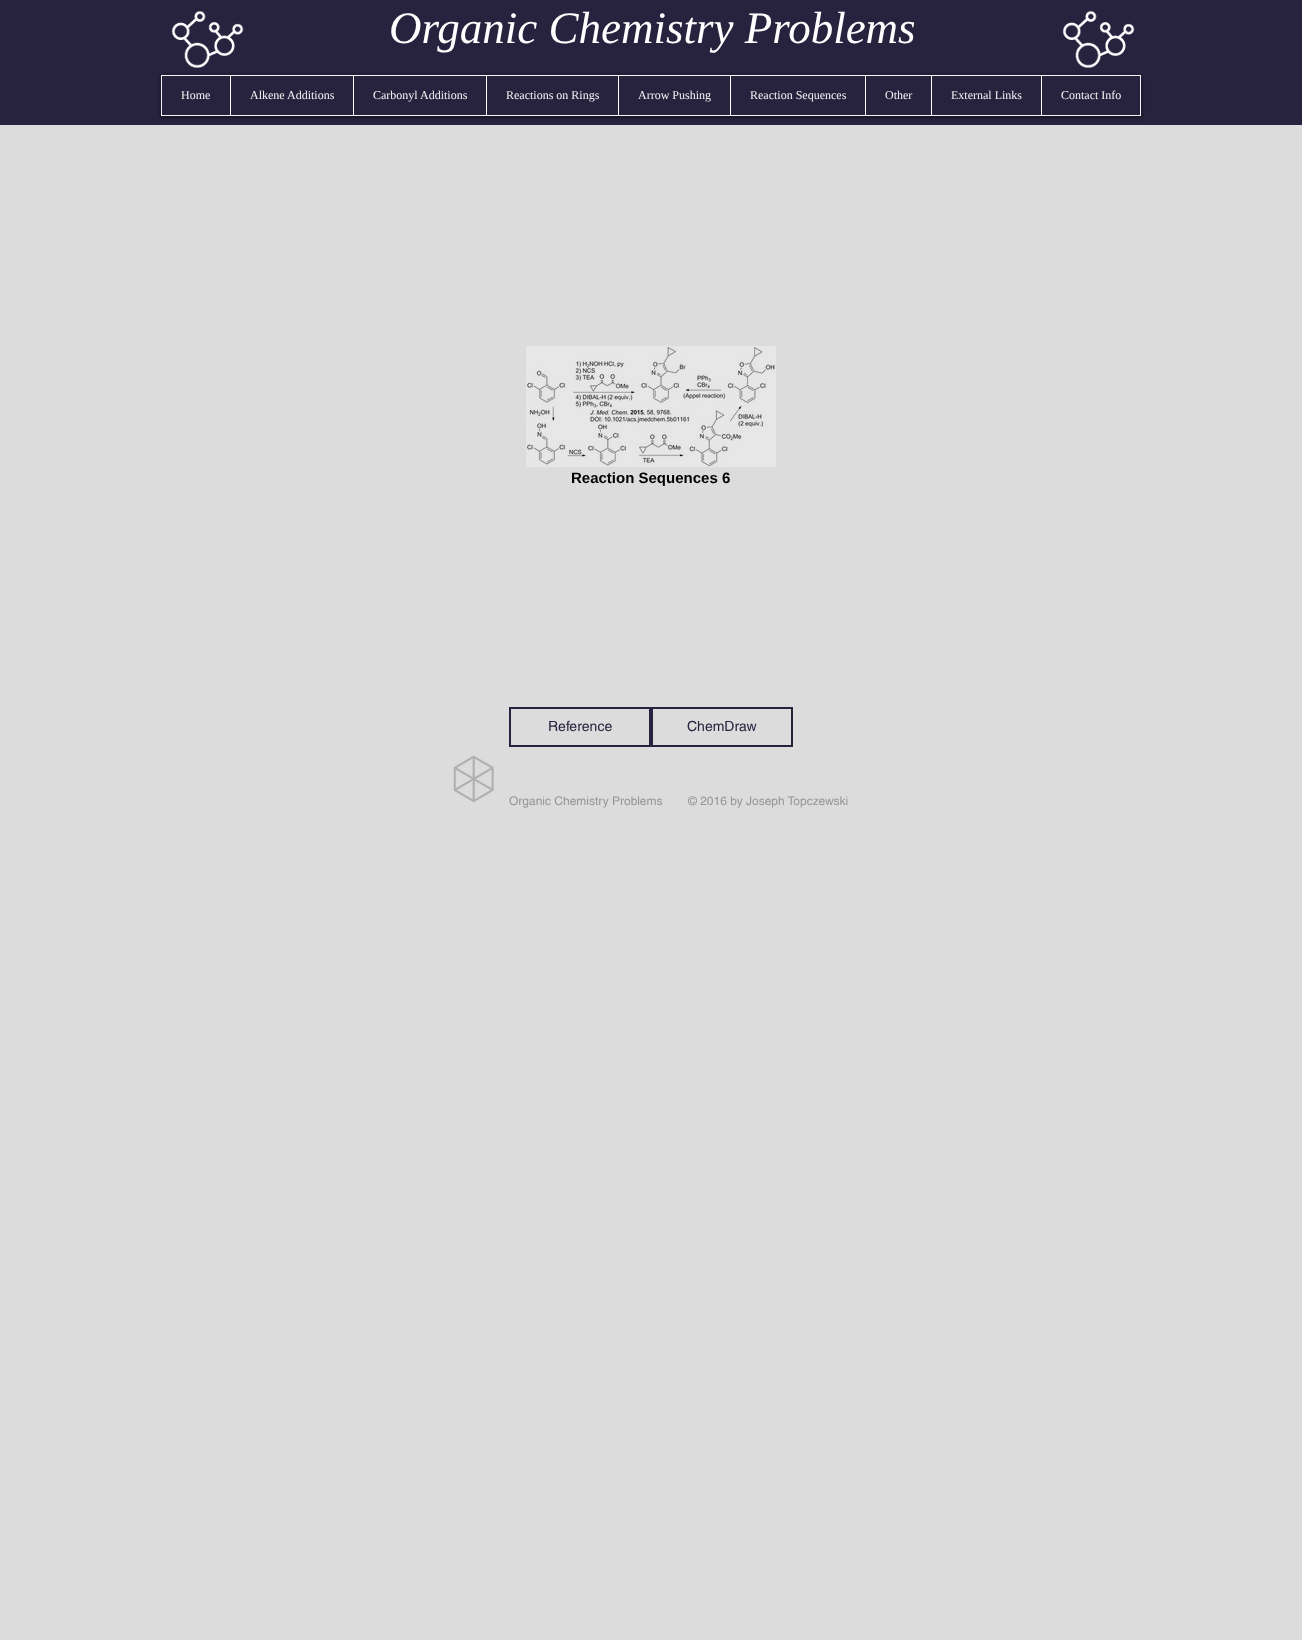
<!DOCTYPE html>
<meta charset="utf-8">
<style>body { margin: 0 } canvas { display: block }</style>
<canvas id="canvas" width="1302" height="1640"></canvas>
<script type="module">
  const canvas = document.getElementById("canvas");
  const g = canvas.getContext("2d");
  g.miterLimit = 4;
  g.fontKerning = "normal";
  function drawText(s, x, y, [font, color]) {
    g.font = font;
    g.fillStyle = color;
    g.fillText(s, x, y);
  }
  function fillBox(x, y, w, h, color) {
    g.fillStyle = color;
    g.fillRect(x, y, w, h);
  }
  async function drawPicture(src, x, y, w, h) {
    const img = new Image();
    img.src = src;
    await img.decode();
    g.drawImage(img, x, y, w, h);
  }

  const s1 = ["italic 45px Liberation Serif", "#FFFFFF"];
  const s2 = ["12px Liberation Serif", "#F5F5F5"];
  const s3 = ["bold 15px Liberation Sans", "#000000"];
  const s4 = ["14px helvetica", "#27223E"];
  const s5 = ["12px helvetica", "#969696"];

  fillBox(0, 0, 1302, 1640, "#DCDCDC");
  fillBox(0, 0, 1302, 125, "#27223E");
  await drawPicture("pic1.png", 170, 10, 74, 58);
  drawText("Organic Chemistry Problems", 389, 43, s1);
  await drawPicture("pic1.png", 1061, 10, 74, 58);
  g.save();
  g.beginPath();
  g.moveTo(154, 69);
  g.lineTo(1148, 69);
  g.lineTo(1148, 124);
  g.lineTo(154, 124);
  g.closePath();
  g.moveTo(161, 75);
  g.lineTo(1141, 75);
  g.lineTo(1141, 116);
  g.lineTo(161, 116);
  g.closePath();
  g.clip("evenodd");
  g.fillStyle = "rgba(0, 0, 0, 0.6)";
  g.filter = "blur(2px)";
  g.beginPath();
  g.rect(161, 76, 980, 41);
  g.fill();
  g.filter = "none";
  g.restore();
  g.strokeStyle = "#F5F5F5";
  g.strokeRect(161.5, 75.5, 979, 40);
  drawText("Home", 181, 99, s2);
  fillBox(230, 76, 1, 39, "#FFFFFF");
  drawText("Alkene Additions", 250, 99, s2);
  fillBox(353, 76, 1, 39, "#FFFFFF");
  drawText("Carbonyl Additions", 373, 99, s2);
  fillBox(486, 76, 1, 39, "#FFFFFF");
  drawText("Reactions on Rings", 506, 99, s2);
  fillBox(618, 76, 1, 39, "#FFFFFF");
  drawText("Arrow Pushing", 638, 99, s2);
  fillBox(730, 76, 1, 39, "#FFFFFF");
  drawText("Reaction Sequences", 750, 99, s2);
  fillBox(865, 76, 1, 39, "#FFFFFF");
  drawText("Other", 885, 99, s2);
  fillBox(931, 76, 1, 39, "#FFFFFF");
  drawText("External Links", 951, 99, s2);
  fillBox(1041, 76, 1, 39, "#FFFFFF");
  drawText("Contact Info", 1061, 99, s2);
  await drawPicture("pic2.png", 526, 346, 250, 121);
  drawText("Reaction Sequences 6", 571, 483, s3);
  g.strokeStyle = "#27223E";
  g.lineWidth = 2;
  g.strokeRect(510, 708, 140, 38);
  drawText("Reference", 548, 731, s4);
  g.strokeRect(652, 708, 140, 38);
  drawText("ChemDraw", 687, 731, s4);
  await drawPicture("pic3.png", 453, 755, 41, 48);
  drawText("Organic Chemistry Problems", 509, 805, s5);
  drawText("© 2016 by Joseph Topczewski", 688, 805, s5);
</script>
